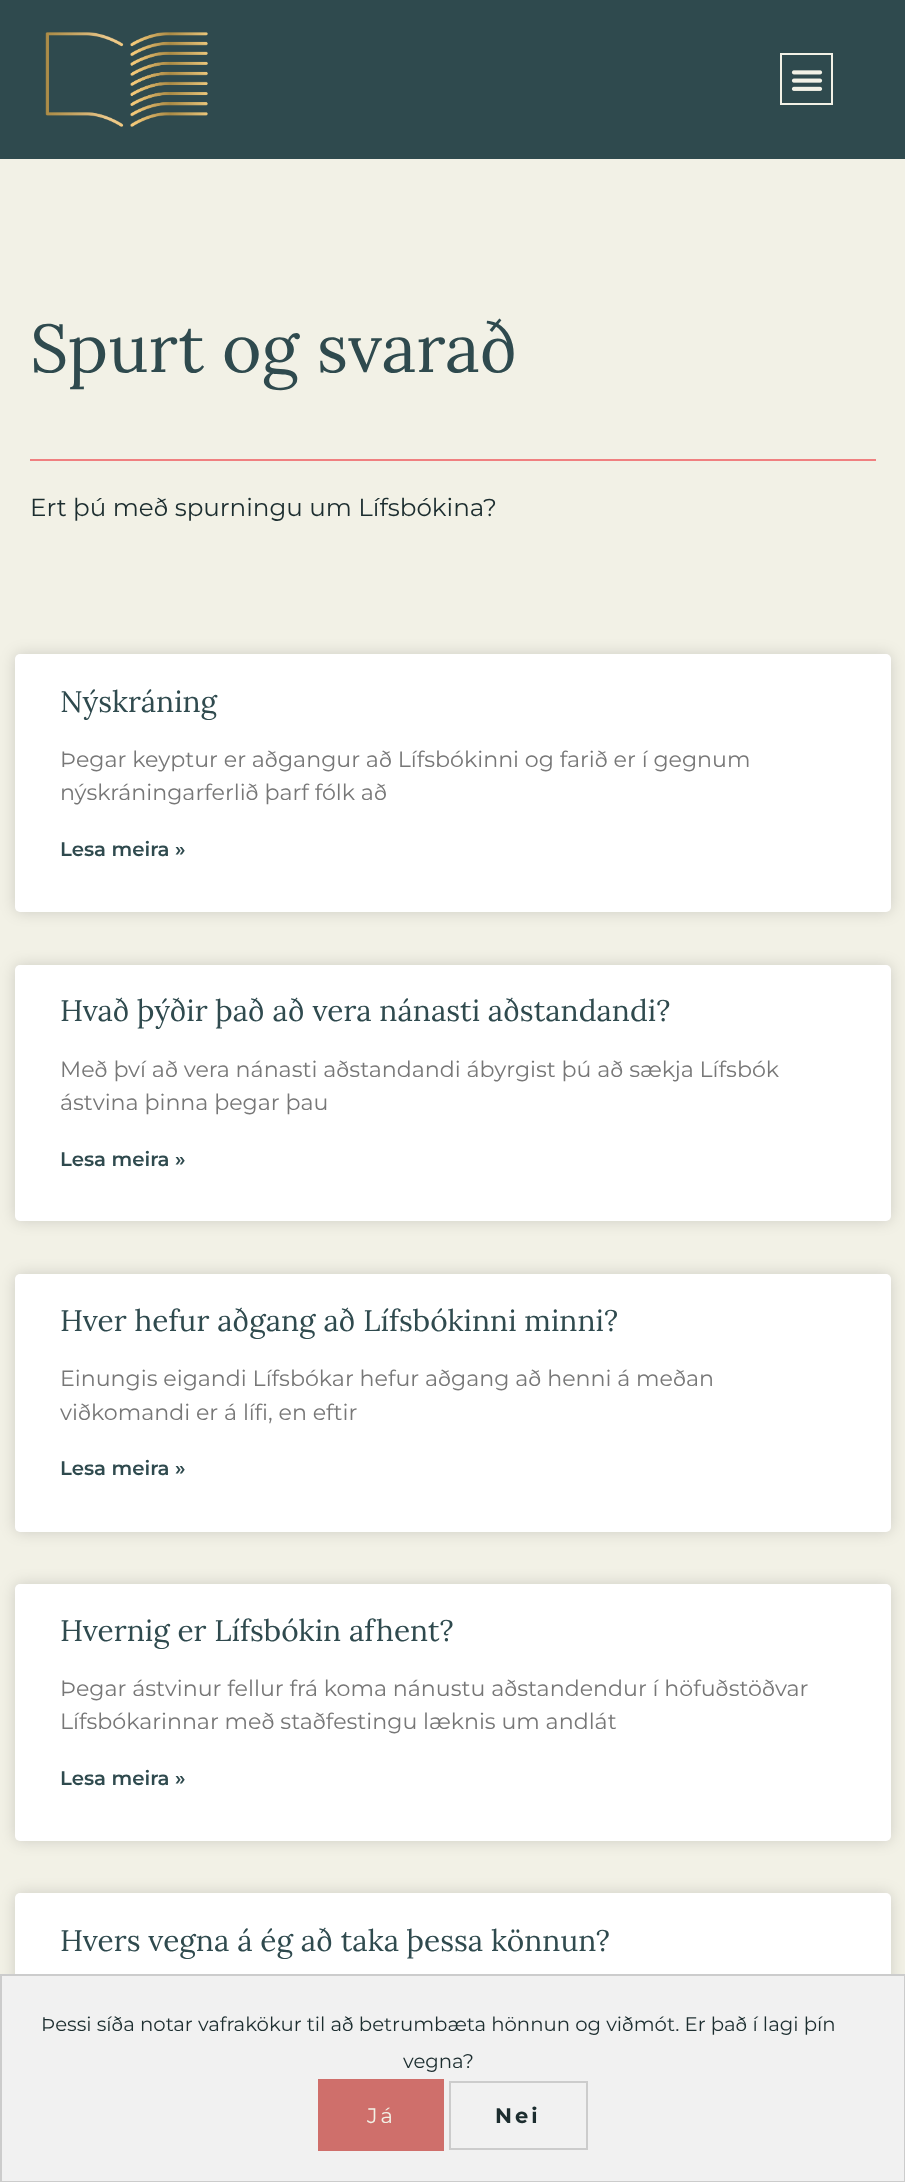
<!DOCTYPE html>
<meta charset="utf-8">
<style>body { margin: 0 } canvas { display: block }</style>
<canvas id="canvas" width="905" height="2182"></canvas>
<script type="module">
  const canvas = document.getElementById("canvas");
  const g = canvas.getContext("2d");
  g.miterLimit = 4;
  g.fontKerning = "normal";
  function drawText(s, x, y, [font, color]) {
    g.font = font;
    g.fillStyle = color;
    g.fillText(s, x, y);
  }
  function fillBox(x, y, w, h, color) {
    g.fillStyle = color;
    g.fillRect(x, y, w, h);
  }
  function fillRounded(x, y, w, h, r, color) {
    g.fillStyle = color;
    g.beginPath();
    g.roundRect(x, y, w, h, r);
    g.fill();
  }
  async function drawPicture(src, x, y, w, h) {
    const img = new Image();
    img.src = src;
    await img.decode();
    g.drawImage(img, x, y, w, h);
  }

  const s1 = ["67.5px Lora", "#2F4A4E"];
  const s2 = ["24.6px Montserrat", "#1C2D2F"];
  const s3 = ["29.8px Lora", "#2F4A4E"];
  const s4 = ["22.15px Montserrat", "#777777"];
  const s5 = ["600 19.7px Montserrat", "#2F4A4E"];
  const s6 = ["19.7px Montserrat", "#1C2D2F"];
  const s7 = ["21px Montserrat", "#F2F1E6"];
  const s8 = ["bold 21px Montserrat", "#1C2D2F"];

  fillBox(0, 0, 905, 2182, "#F2F1E6");
  fillBox(0, 0, 905, 159, "#2F4A4E");
  await drawPicture("pic1.png", 45, 32, 163, 95);
  g.strokeStyle = "#F2F1E6";
  g.lineWidth = 2;
  g.strokeRect(781, 54, 51, 50);
  await drawPicture("pic2.png", 791, 70, 32, 21);
  drawText("Spurt og svarað", 30, 372, s1);
  fillBox(30, 459, 846, 2, "#F08080");
  drawText("Ert þú með spurningu um Lífsbókina?", 30, 516, s2);
  g.fillStyle = "rgba(0, 0, 0, 0.15)";
  g.filter = "blur(7.5px)";
  g.beginPath();
  g.roundRect(15, 654, 876, 258, 5);
  g.fill();
  g.filter = "none";
  fillRounded(15, 654, 876, 258, 5, "#FFFFFF");
  drawText("Nýskráning", 60, 712, s3);
  drawText("Þegar keyptur er aðgangur að Lífsbókinni og farið er í gegnum", 60, 767, s4);
  drawText("nýskráningarferlið þarf fólk að", 60, 800, s4);
  drawText("Lesa meira »", 60, 856, s5);
  g.fillStyle = "rgba(0, 0, 0, 0.15)";
  g.filter = "blur(7.5px)";
  g.beginPath();
  g.roundRect(15, 965, 876, 256, 5);
  g.fill();
  g.filter = "none";
  fillRounded(15, 965, 876, 256, 5, "#FFFFFF");
  drawText("Hvað þýðir það að vera nánasti aðstandandi?", 60, 1021, s3);
  drawText("Með því að vera nánasti aðstandandi ábyrgist þú að sækja Lífsbók", 60, 1077, s4);
  drawText("ástvina þinna þegar þau", 60, 1110, s4);
  drawText("Lesa meira »", 60, 1166, s5);
  g.fillStyle = "rgba(0, 0, 0, 0.15)";
  g.filter = "blur(7.5px)";
  g.beginPath();
  g.roundRect(15, 1274, 876, 258, 5);
  g.fill();
  g.filter = "none";
  fillRounded(15, 1274, 876, 258, 5, "#FFFFFF");
  drawText("Hver hefur aðgang að Lífsbókinni minni?", 60, 1331, s3);
  drawText("Einungis eigandi Lífsbókar hefur aðgang að henni á meðan", 60, 1386, s4);
  drawText("viðkomandi er á lífi, en eftir", 60, 1420, s4);
  drawText("Lesa meira »", 60, 1475, s5);
  g.fillStyle = "rgba(0, 0, 0, 0.15)";
  g.filter = "blur(7.5px)";
  g.beginPath();
  g.roundRect(15, 1584, 876, 257, 5);
  g.fill();
  g.filter = "none";
  fillRounded(15, 1584, 876, 257, 5, "#FFFFFF");
  drawText("Hvernig er Lífsbókin afhent?", 60, 1641, s3);
  drawText("Þegar ástvinur fellur frá koma nánustu aðstandendur í höfuðstöðvar", 60, 1696, s4);
  drawText("Lífsbókarinnar með staðfestingu læknis um andlát", 60, 1729, s4);
  drawText("Lesa meira »", 60, 1785, s5);
  g.fillStyle = "rgba(0, 0, 0, 0.15)";
  g.filter = "blur(7.5px)";
  g.beginPath();
  g.roundRect(15, 1893, 876, 258, 5);
  g.fill();
  g.filter = "none";
  fillRounded(15, 1893, 876, 258, 5, "#FFFFFF");
  drawText("Hvers vegna á ég að taka þessa könnun?", 60, 1951, s3);
  g.fillStyle = "#F1F1F1";
  g.beginPath();
  g.rect(1, 1975, 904, 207);
  g.fill();
  g.strokeStyle = "#CCCCCC";
  g.stroke();
  drawText("Þessi síða notar vafrakökur til að betrumbæta hönnun og viðmót. Er það í lagi þín", 41, 2031, s6);
  drawText("vegna?", 403, 2068, s6);
  fillBox(318, 2079, 126, 72, "#CF6F6B");
  g.letterSpacing = "3px";
  drawText("Já", 367, 2123, s7);
  g.strokeRect(450, 2082, 137, 67);
  drawText("Nei", 495, 2123, s8);
</script>
